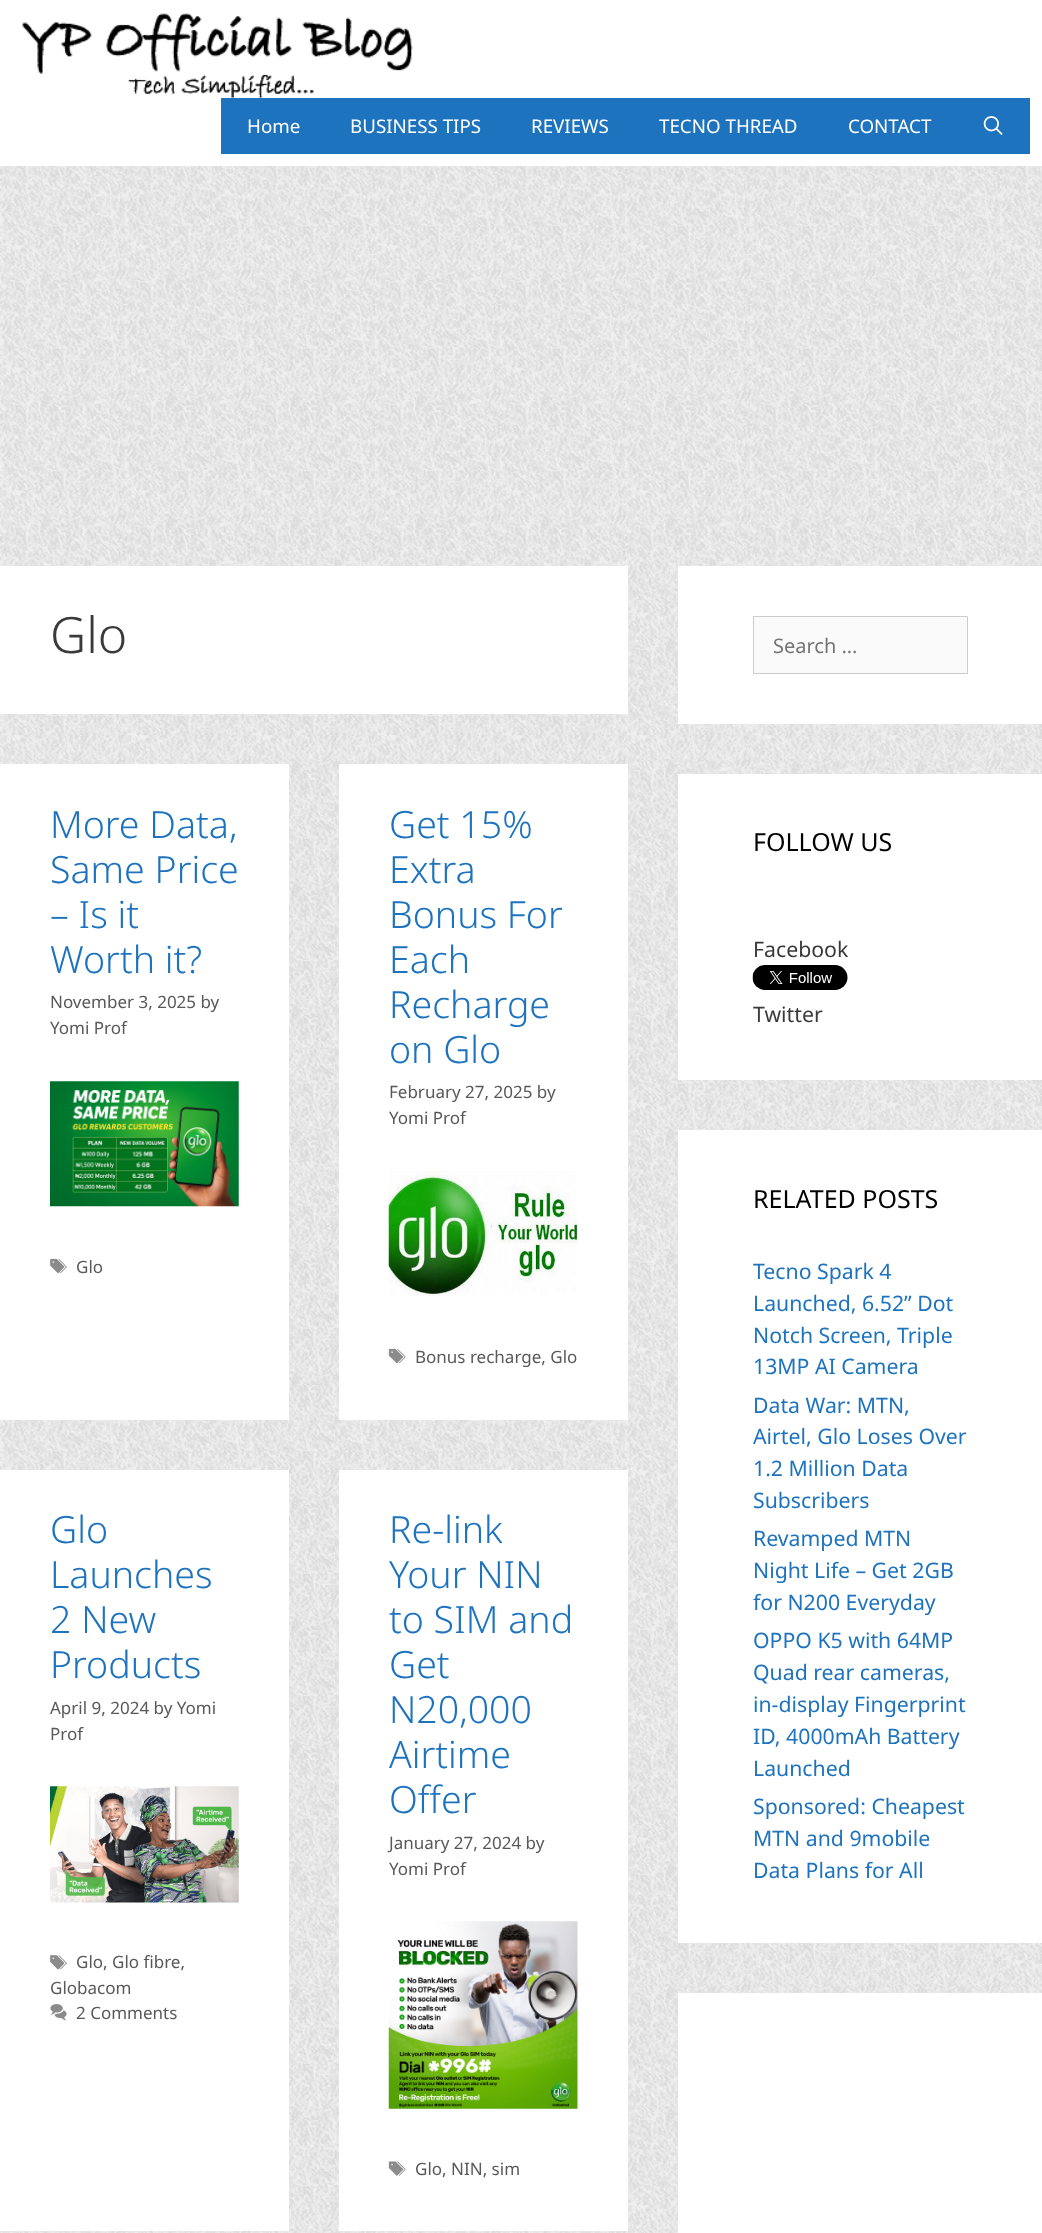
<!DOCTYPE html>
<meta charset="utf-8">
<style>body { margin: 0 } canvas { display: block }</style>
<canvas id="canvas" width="1042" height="2233"></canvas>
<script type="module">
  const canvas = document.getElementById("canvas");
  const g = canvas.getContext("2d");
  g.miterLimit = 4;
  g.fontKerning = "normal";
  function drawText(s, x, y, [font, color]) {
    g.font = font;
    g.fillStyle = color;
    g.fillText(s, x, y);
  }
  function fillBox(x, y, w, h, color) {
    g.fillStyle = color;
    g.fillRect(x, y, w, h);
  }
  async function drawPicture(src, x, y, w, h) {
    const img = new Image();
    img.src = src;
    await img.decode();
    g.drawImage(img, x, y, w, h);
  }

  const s1 = ["18.75px Noto Sans", "#FFFFFF"];
  const s2 = ["300 50px Noto Sans", "#3A3A3A"];
  const s3 = ["300 37.5px Noto Sans", "#1E73BE"];
  const s4 = ["17px Noto Sans", "#595959"];
  const s5 = ["20px Noto Sans", "#757575"];
  const s6 = ["25px Noto Sans", "#000000"];
  const s7 = ["21.25px Noto Sans", "#3A3A3A"];
  const s8 = ["21.25px Noto Sans", "#1E73BE"];

  fillBox(0, 0, 1042, 2233, "#FFFFFF");
  await drawPicture("pic1.png", 0, 166, 1042, 2067);
  await drawPicture("pic2.png", 22, 13, 391, 85);
  fillBox(221, 98, 809, 56, "#1E73BE");
  drawText("Home", 247, 133, s1);
  drawText("BUSINESS TIPS", 350, 133, s1);
  drawText("REVIEWS", 531, 133, s1);
  drawText("TECNO THREAD", 659, 133, s1);
  drawText("CONTACT", 848, 133, s1);
  await drawPicture("pic3.png", 983, 116, 20, 19);
  fillBox(0, 566, 628, 148, "#FFFFFF");
  drawText("Glo", 50, 653, s2);
  fillBox(0, 764, 289, 656, "#FFFFFF");
  drawText("More Data,", 50, 838, s3);
  drawText("Same Price", 50, 883, s3);
  drawText("– Is it", 50, 928, s3);
  drawText("Worth it?", 50, 973, s3);
  drawText("November 3, 2025 by", 50, 1008, s4);
  drawText("Yomi Prof", 50, 1034, s4);
  await drawPicture("pic4.png", 50, 1081, 189, 126);
  await drawPicture("pic5.png", 50, 1258, 17, 16);
  drawText("Glo", 76, 1273, s4);
  fillBox(339, 764, 289, 656, "#FFFFFF");
  drawText("Get 15%", 389, 838, s3);
  drawText("Extra", 389, 883, s3);
  drawText("Bonus For", 389, 928, s3);
  drawText("Each", 389, 973, s3);
  drawText("Recharge", 389, 1018, s3);
  drawText("on Glo", 389, 1063, s3);
  drawText("February 27, 2025 by", 389, 1098, s4);
  drawText("Yomi Prof", 389, 1124, s4);
  await drawPicture("pic6.png", 388, 1171, 190, 125);
  await drawPicture("pic7.png", 388, 1348, 18, 16);
  drawText("Bonus recharge, Glo", 415, 1363, s4);
  fillBox(0, 1470, 289, 761, "#FFFFFF");
  drawText("Glo", 50, 1543, s3);
  drawText("Launches", 50, 1588, s3);
  drawText("2 New", 50, 1633, s3);
  drawText("Products", 50, 1678, s3);
  drawText("April 9, 2024 by Yomi", 50, 1714, s4);
  drawText("Prof", 50, 1740, s4);
  await drawPicture("pic8.png", 50, 1786, 189, 117);
  await drawPicture("pic9.png", 50, 1955, 17, 15);
  drawText("Glo, Glo fibre,", 76, 1968, s4);
  drawText("Globacom", 50, 1994, s4);
  await drawPicture("pic10.png", 50, 2004, 17, 17);
  drawText("2 Comments", 76, 2019, s4);
  fillBox(339, 1470, 289, 761, "#FFFFFF");
  drawText("Re-link", 389, 1543, s3);
  drawText("Your NIN", 389, 1588, s3);
  drawText("to SIM and", 389, 1633, s3);
  drawText("Get", 389, 1678, s3);
  drawText("N20,000", 389, 1723, s3);
  drawText("Airtime", 389, 1768, s3);
  drawText("Offer", 389, 1813, s3);
  drawText("January 27, 2024 by", 389, 1849, s4);
  drawText("Yomi Prof", 389, 1875, s4);
  await drawPicture("pic11.png", 388, 1921, 190, 188);
  await drawPicture("pic12.png", 388, 2161, 18, 15);
  drawText("Glo, NIN, sim", 415, 2175, s4);
  fillBox(678, 566, 364, 158, "#FFFFFF");
  g.fillStyle = "#FAFAFA";
  g.beginPath();
  g.rect(753.5, 616.5, 214, 57);
  g.fill();
  g.strokeStyle = "#CCCCCC";
  g.stroke();
  drawText("Search …", 773, 653, s5);
  fillBox(678, 774, 364, 306, "#FFFFFF");
  drawText("FOLLOW US", 753, 851, s6);
  drawText("Facebook", 753, 957, s7);
  await drawPicture("pic13.png", 752, 965, 96, 25);
  drawText("Twitter", 753, 1022, s7);
  fillBox(678, 1130, 364, 813, "#FFFFFF");
  drawText("RELATED POSTS", 753, 1208, s6);
  drawText("Tecno Spark 4", 753, 1279, s8);
  drawText("Launched, 6.52” Dot", 753, 1311, s8);
  drawText("Notch Screen, Triple", 753, 1343, s8);
  drawText("13MP AI Camera", 753, 1374, s8);
  drawText("Data War: MTN,", 753, 1413, s8);
  drawText("Airtel, Glo Loses Over", 753, 1444, s8);
  drawText("1.2 Million Data", 753, 1476, s8);
  drawText("Subscribers", 753, 1508, s8);
  drawText("Revamped MTN", 753, 1546, s8);
  drawText("Night Life – Get 2GB", 753, 1578, s8);
  drawText("for N200 Everyday", 753, 1610, s8);
  drawText("OPPO K5 with 64MP", 753, 1648, s8);
  drawText("Quad rear cameras,", 753, 1680, s8);
  drawText("in-display Fingerprint", 753, 1712, s8);
  drawText("ID, 4000mAh Battery", 753, 1744, s8);
  drawText("Launched", 753, 1776, s8);
  drawText("Sponsored: Cheapest", 753, 1814, s8);
  drawText("MTN and 9mobile", 753, 1846, s8);
  drawText("Data Plans for All", 753, 1878, s8);
  fillBox(678, 1993, 364, 240, "#FFFFFF");
</script>
